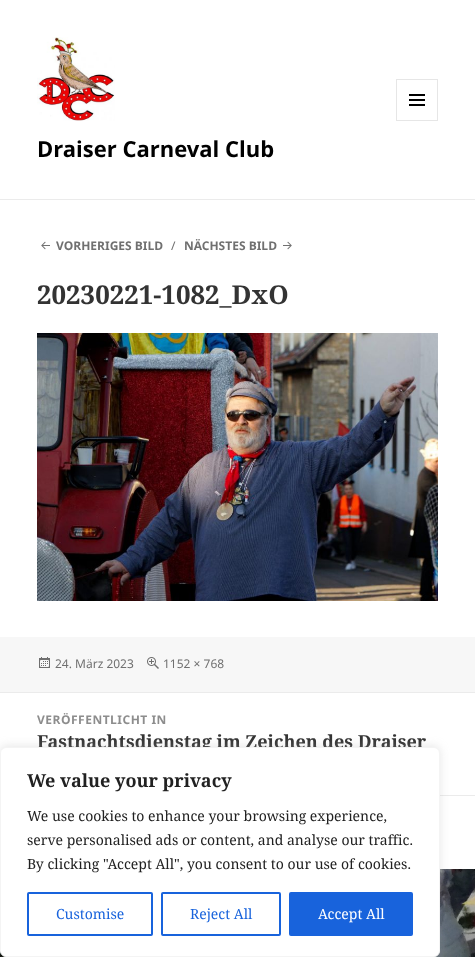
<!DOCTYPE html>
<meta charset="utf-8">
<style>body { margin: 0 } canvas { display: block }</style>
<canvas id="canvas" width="475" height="957"></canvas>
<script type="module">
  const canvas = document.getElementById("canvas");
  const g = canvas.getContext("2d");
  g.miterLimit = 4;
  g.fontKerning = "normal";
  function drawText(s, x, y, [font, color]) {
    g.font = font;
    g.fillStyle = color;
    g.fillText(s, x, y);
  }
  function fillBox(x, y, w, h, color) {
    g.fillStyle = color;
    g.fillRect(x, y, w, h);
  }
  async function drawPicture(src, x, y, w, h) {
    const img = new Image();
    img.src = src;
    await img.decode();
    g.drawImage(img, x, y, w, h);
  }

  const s1 = ["bold 22px Noto Sans", "#000000"];
  const s2 = ["bold 12px Noto Sans", "#707070"];
  const s3 = ["12px Noto Sans", "#707070"];
  const s4 = ["bold 26px Noto Serif", "#333333"];
  const s5 = ["bold 12px Noto Sans", "#8D8D8D"];
  const s6 = ["bold 18px Noto Serif", "#333333"];
  const s7 = ["bold 18px Noto Serif", "#212121"];
  const s8 = ["14px Noto Serif", "#212121"];
  const s9 = ["14px Noto Serif", "#1863DC"];
  const s10 = ["14px Noto Serif", "#FFFFFF"];

  fillBox(0, 0, 475, 957, "#FFFFFF");
  await drawPicture("pic1.png", 0, 869, 475, 88);
  fillBox(0, 199, 475, 1, "#EBEBEB");
  await drawPicture("pic2.png", 37, 37, 78, 84);
  g.strokeStyle = "#E6E6E6";
  g.strokeRect(396.5, 79.5, 41, 41);
  await drawPicture("pic3.png", 409, 94, 16, 12);
  drawText("Draiser Carneval Club", 37, 157, s1);
  await drawPicture("pic4.png", 41, 241, 9, 9);
  drawText("VORHERIGES BILD", 56, 250, s2);
  drawText("∕", 171, 250, s3);
  drawText("NÄCHSTES BILD", 184, 250, s2);
  await drawPicture("pic5.png", 283, 241, 9, 9);
  drawText("20230221-1082_DxO", 37, 304, s4);
  await drawPicture("pic6.png", 37, 333, 401, 268);
  fillBox(0, 637, 475, 55, "#F7F7F7");
  await drawPicture("pic7.png", 39, 657, 11, 11);
  drawText("24. März 2023", 55, 668, s3);
  await drawPicture("pic8.png", 147, 657, 12, 12);
  drawText("1152 × 768", 163, 668, s3);
  fillBox(0, 692, 475, 1, "#EBEBEB");
  g.letterSpacing = "0.5px";
  drawText("VERÖFFENTLICHT IN", 37, 724, s5);
  g.letterSpacing = "0px";
  drawText("Fastnachtsdienstag im Zeichen des Draiser", 37, 748, s6);
  fillBox(440, 795, 35, 1, "#EBEBEB");
  g.fillStyle = "rgba(172, 171, 171, 0.3)";
  g.filter = "blur(5px)";
  g.beginPath();
  g.roundRect(0, 746, 440, 210, 6);
  g.fill();
  g.filter = "none";
  g.fillStyle = "#FFFFFF";
  g.beginPath();
  g.roundRect(0.5, 747.5, 439, 209, 5.5);
  g.fill();
  g.strokeStyle = "#F4F4F4";
  g.stroke();
  drawText("We value your privacy", 27, 787, s7);
  drawText("We use cookies to enhance your browsing experience,", 27, 821, s8);
  drawText("serve personalised ads or content, and analyse our traffic.", 27, 845, s8);
  drawText("By clicking \"Accept All\", you consent to our use of cookies.", 27, 869, s8);
  g.beginPath();
  g.roundRect(28, 893, 124, 42, 1);
  g.strokeStyle = "#1863DC";
  g.lineWidth = 2;
  g.stroke();
  drawText("Customise", 56, 919, s9);
  g.beginPath();
  g.roundRect(162, 893, 118, 42, 1);
  g.stroke();
  drawText("Reject All", 190, 919, s9);
  g.beginPath();
  g.roundRect(290, 893, 122, 42, 1);
  g.fill();
  g.stroke();
  drawText("Accept All", 318, 919, s10);
</script>
